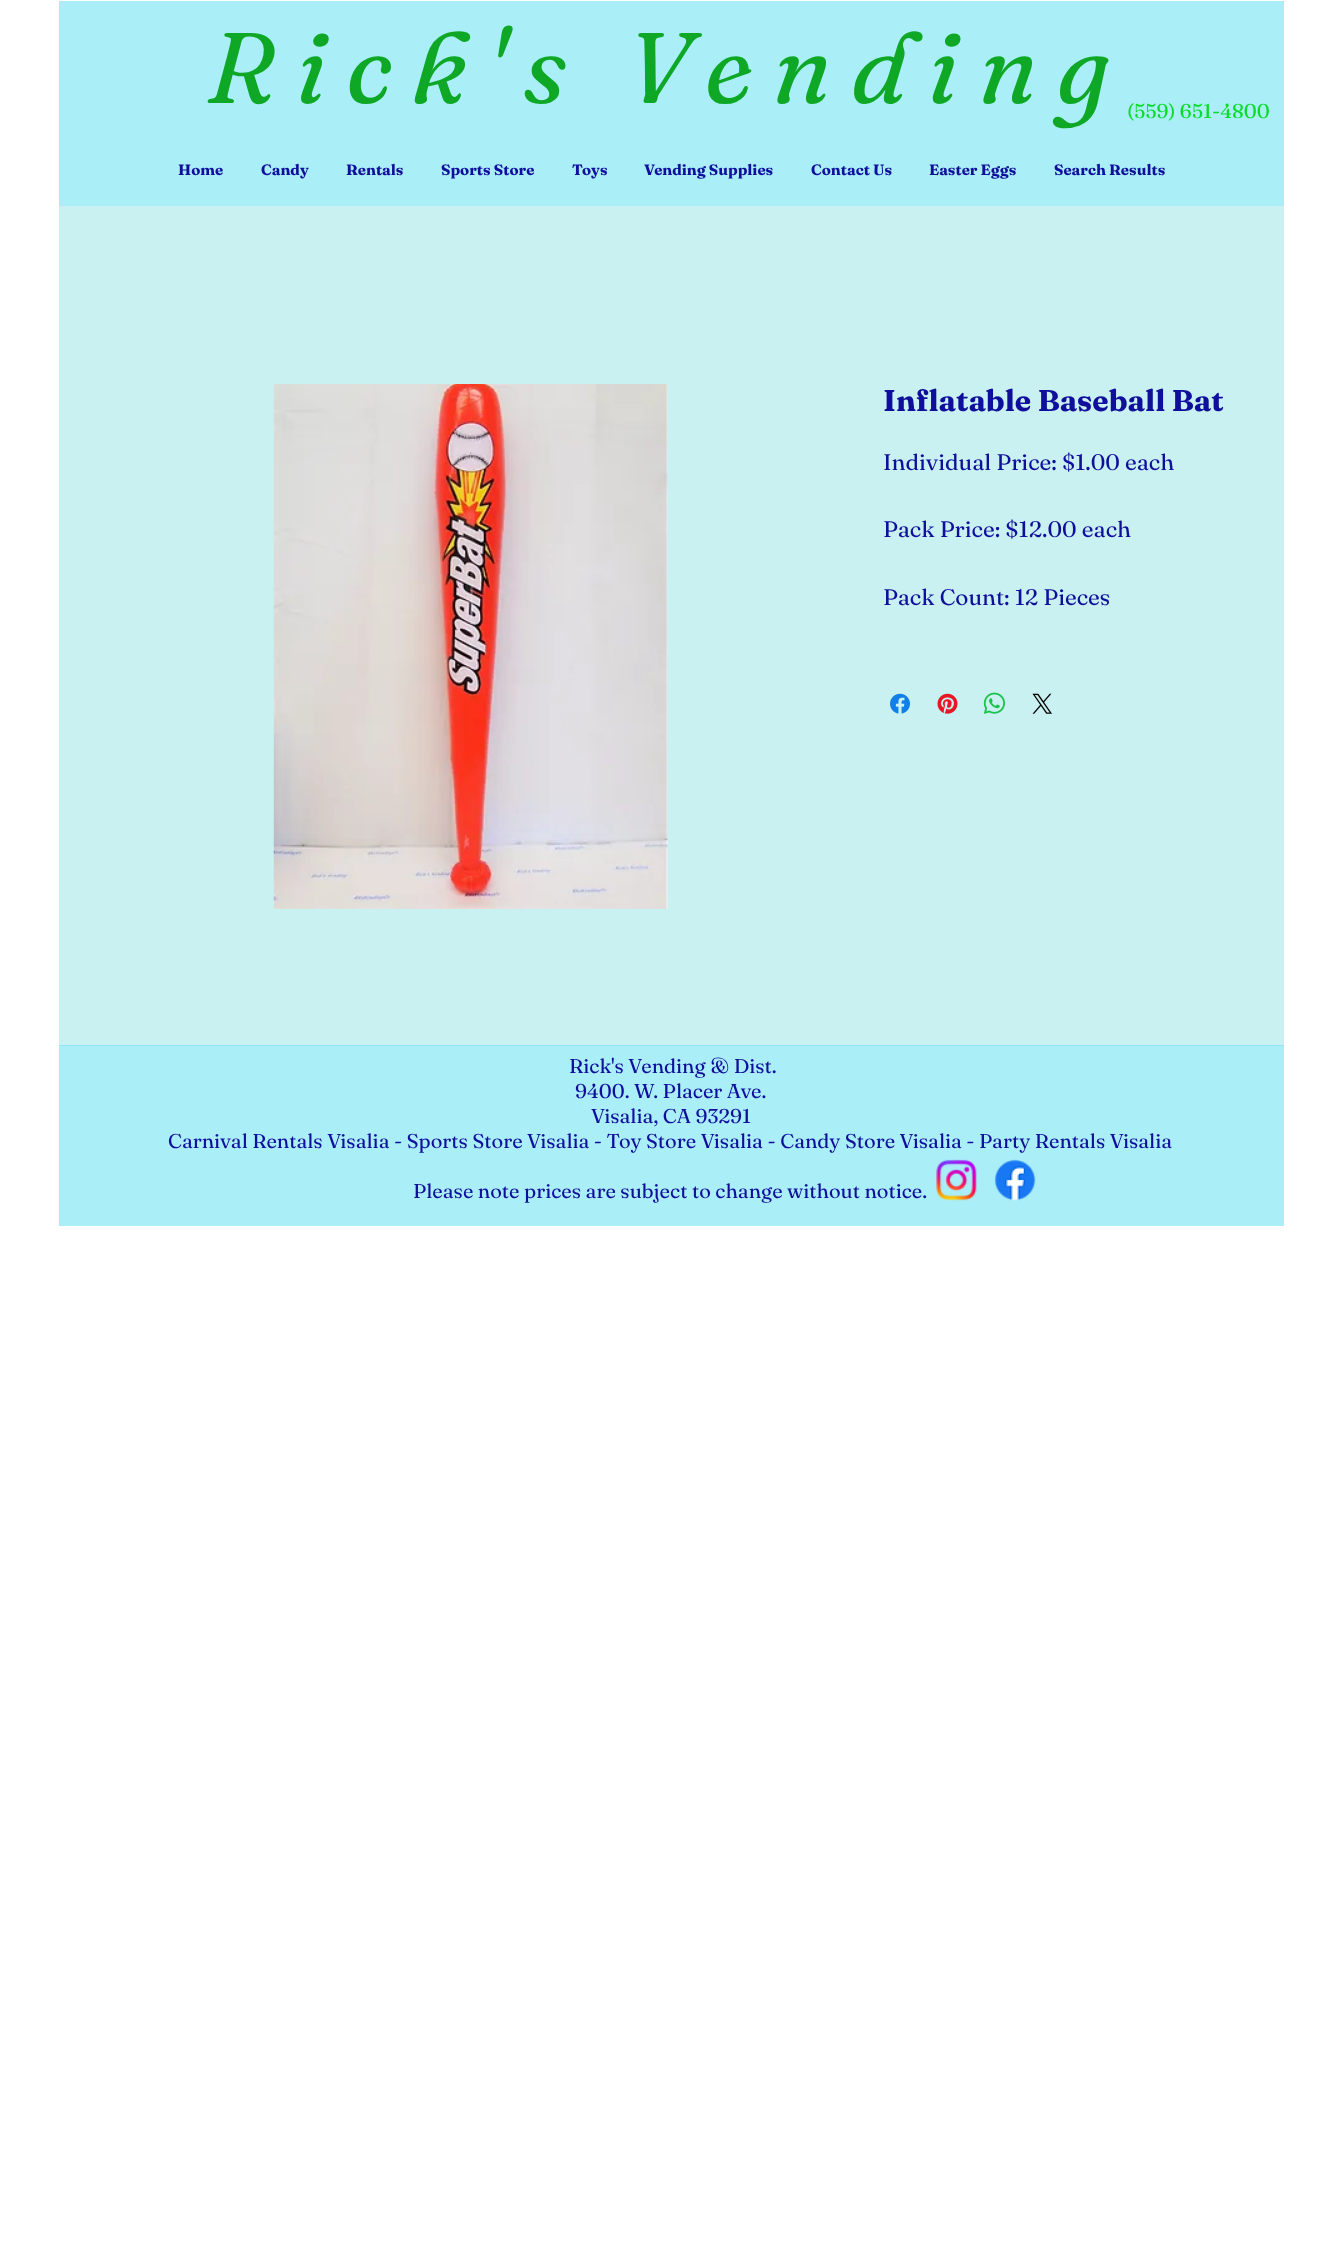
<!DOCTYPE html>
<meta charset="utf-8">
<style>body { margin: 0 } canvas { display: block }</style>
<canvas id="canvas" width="1341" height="2247"></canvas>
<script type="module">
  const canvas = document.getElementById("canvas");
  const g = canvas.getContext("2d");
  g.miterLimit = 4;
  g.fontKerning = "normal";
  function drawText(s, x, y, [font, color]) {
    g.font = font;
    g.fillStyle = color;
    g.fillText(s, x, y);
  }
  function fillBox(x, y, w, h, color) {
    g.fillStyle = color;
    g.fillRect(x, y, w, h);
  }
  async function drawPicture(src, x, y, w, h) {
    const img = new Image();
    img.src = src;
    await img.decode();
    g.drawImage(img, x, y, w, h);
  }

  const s1 = ["italic 100px Fraunces", "#0FA826"];
  const s2 = ["20px Fraunces", "#09DC28"];
  const s3 = ["bold 15px Fraunces", "#0F0F9C"];
  const s4 = ["bold 30px Fraunces", "#0F0F9C"];
  const s5 = ["22.5px Fraunces", "#0F0F9C"];
  const s6 = ["20px Fraunces", "#0F0F9C"];

  fillBox(0, 0, 1341, 2247, "#FFFFFF");
  fillBox(59, 1046, 1225, 180, "#AAEEF8");
  fillBox(59, 1, 1225, 205, "#AAEEF8");
  g.letterSpacing = "20px";
  drawText("Rick's Vending", 207, 103, s1);
  g.letterSpacing = "0px";
  drawText("(559) 651-4800", 1127, 118, s2);
  drawText("Home", 178, 175, s3);
  drawText("Candy", 261, 175, s3);
  drawText("Rentals", 346, 175, s3);
  drawText("Sports Store", 441, 175, s3);
  drawText("Toys", 572, 175, s3);
  drawText("Vending Supplies", 644, 175, s3);
  drawText("Contact Us", 811, 175, s3);
  drawText("Easter Eggs", 929, 175, s3);
  drawText("Search Results", 1054, 175, s3);
  fillBox(59, 206, 1225, 839, "#CAF1F1");
  fillBox(59, 1045, 1225, 1, "#8FE7F1");
  await drawPicture("pic1.png", 273, 384, 395, 525);
  drawText("Inflatable Baseball Bat", 883, 411, s4);
  drawText("Individual Price: $1.00 each", 883, 470, s5);
  drawText("Pack Price: $12.00 each", 883, 537, s5);
  drawText("Pack Count: 12 Pieces", 883, 605, s5);
  await drawPicture("pic2.png", 890, 693, 20, 21);
  await drawPicture("pic3.png", 937, 693, 21, 21);
  await drawPicture("pic4.png", 983, 692, 22, 22);
  await drawPicture("pic5.png", 1032, 693, 20, 21);
  drawText("Rick's Vending & Dist.", 569, 1073, s6);
  drawText("9400. W. Placer Ave.", 575, 1098, s6);
  drawText("Visalia, CA 93291", 591, 1123, s6);
  drawText("Carnival Rentals Visalia - Sports Store Visalia - Toy Store Visalia - Candy Store Visalia - Party Rentals Visalia", 168, 1148, s6);
  drawText("Please note prices are subject to change without notice.", 413, 1198, s6);
  await drawPicture("pic6.png", 936, 1159, 41, 42);
  await drawPicture("pic7.png", 994, 1159, 42, 42);
</script>
